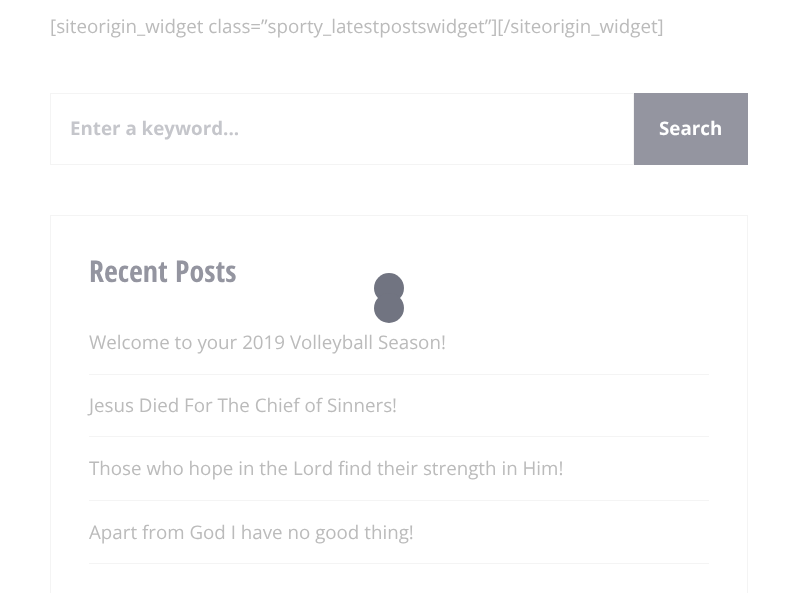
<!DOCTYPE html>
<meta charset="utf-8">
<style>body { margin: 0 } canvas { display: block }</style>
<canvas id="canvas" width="797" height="593"></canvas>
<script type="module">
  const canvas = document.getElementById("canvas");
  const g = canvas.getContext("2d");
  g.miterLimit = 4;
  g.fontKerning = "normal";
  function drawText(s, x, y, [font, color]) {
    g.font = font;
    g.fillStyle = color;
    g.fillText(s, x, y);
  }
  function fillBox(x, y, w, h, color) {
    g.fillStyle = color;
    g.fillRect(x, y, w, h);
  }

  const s1 = ["18.75px Open Sans", "#BBBBBB"];
  const s2 = ["bold 18.75px Open Sans", "#C5C6CB"];
  const s3 = ["bold 18.75px Open Sans", "#FFFFFF"];
  const s4 = ["bold 30px Open Sans Condensed", "#9495A0"];

  fillBox(0, 0, 797, 593, "#FFFFFF");
  drawText("[siteorigin_widget class=”sporty_latestpostswidget”][/siteorigin_widget]", 50, 33, s1);
  g.strokeStyle = "#F4F4F4";
  g.strokeRect(50.5, 93.5, 583, 71);
  drawText("Enter a keyword...", 70, 135, s2);
  fillBox(634, 93, 114, 72, "#9495A0");
  drawText("Search", 659, 135, s3);
  g.strokeRect(50.5, 215.5, 697, 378);
  drawText("Recent Posts", 89, 282, s4);
  fillBox(89, 374, 620, 1, "#F4F4F4");
  drawText("Welcome to your 2019 Volleyball Season!", 89, 349, s1);
  fillBox(89, 436, 620, 1, "#F4F4F4");
  drawText("Jesus Died For The Chief of Sinners!", 89, 412, s1);
  fillBox(89, 500, 620, 1, "#F4F4F4");
  drawText("Those who hope in the Lord find their strength in Him!", 89, 475, s1);
  fillBox(89, 563, 620, 1, "#F4F4F4");
  drawText("Apart from God I have no good thing!", 89, 539, s1);
  g.fillStyle = "#717481";
  g.beginPath();
  g.arc(389, 288, 15, 0, Math.PI * 2);
  g.fill();
  g.beginPath();
  g.arc(389, 308, 15, 0, Math.PI * 2);
  g.fill();
</script>
